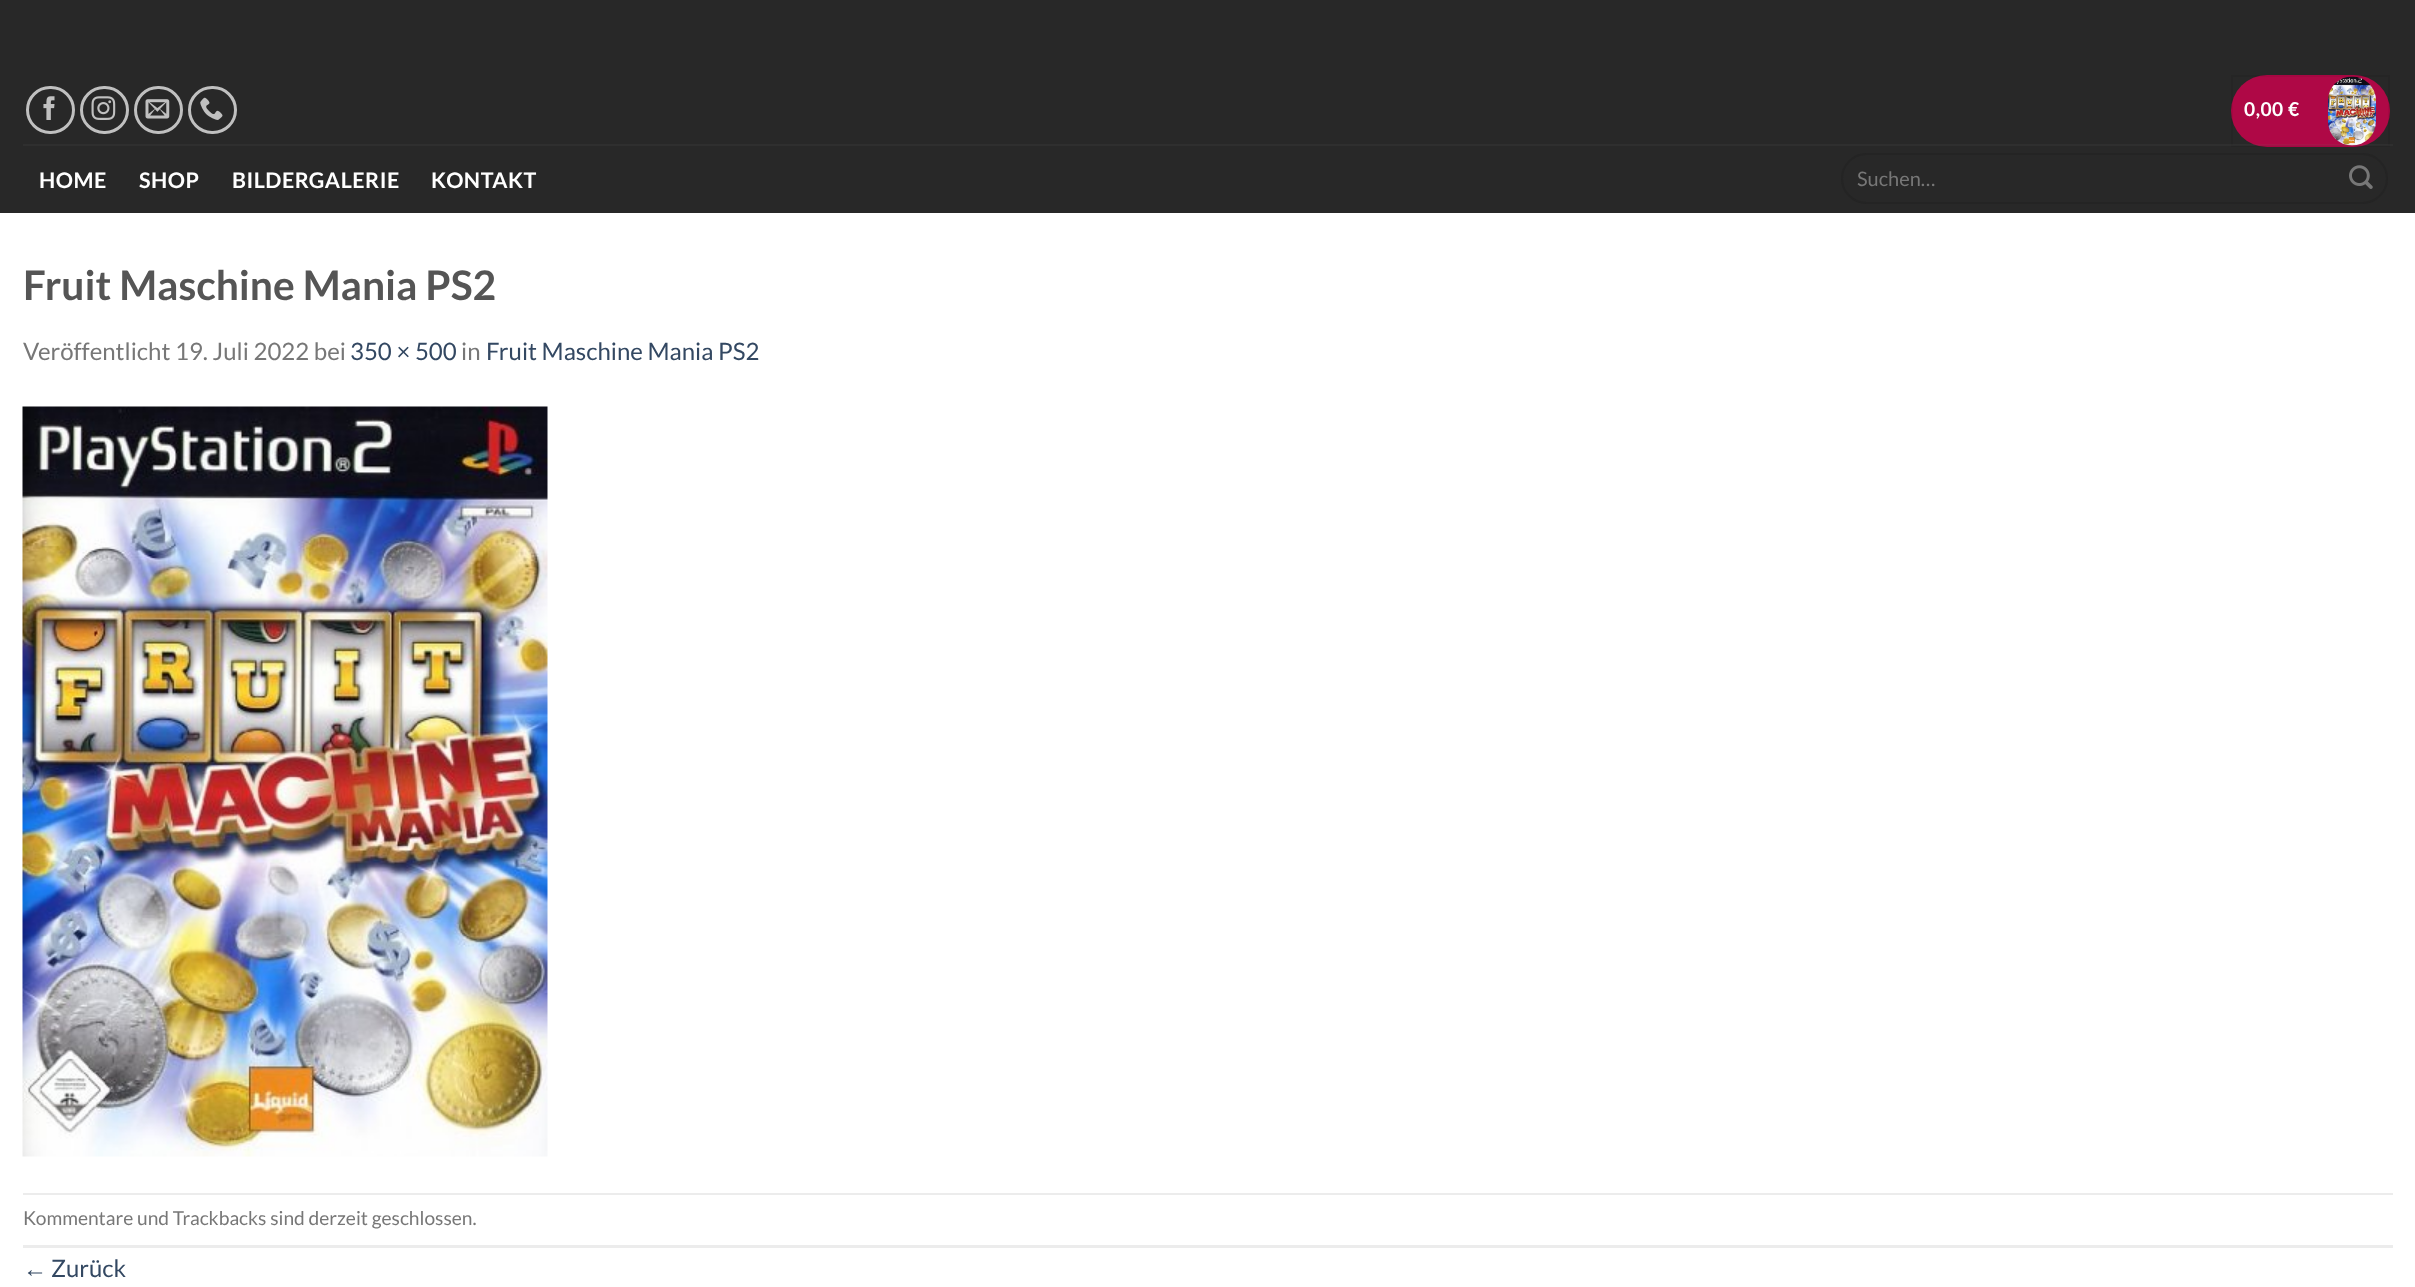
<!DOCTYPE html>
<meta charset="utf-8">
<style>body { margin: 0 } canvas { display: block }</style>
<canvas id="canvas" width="2415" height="1287"></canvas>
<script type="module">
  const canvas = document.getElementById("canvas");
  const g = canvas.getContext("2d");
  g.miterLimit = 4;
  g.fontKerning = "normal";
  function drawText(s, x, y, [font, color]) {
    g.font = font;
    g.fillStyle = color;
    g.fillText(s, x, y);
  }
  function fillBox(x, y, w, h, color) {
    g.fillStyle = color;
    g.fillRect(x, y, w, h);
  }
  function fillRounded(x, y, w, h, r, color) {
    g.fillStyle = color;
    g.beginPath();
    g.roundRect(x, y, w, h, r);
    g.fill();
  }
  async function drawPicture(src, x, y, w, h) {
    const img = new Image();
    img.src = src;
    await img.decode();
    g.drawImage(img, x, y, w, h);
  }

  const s1 = ["bold 19.2px Lato", "#FFFFFF"];
  const s2 = ["bold 21.5px Lato", "#FFFFFF"];
  const s3 = ["20px Lato", "#777777"];
  const s4 = ["bold 40.75px Lato", "#555555"];
  const s5 = ["24px Lato", "#777777"];
  const s6 = ["24px Lato", "#334862"];
  const s7 = ["19.2px Lato", "#777777"];
  const s8 = ["24px Liberation Sans", "#334862"];

  fillBox(0, 0, 2415, 1287, "#FFFFFF");
  fillBox(0, 0, 2415, 213, "#282828");
  g.beginPath();
  g.roundRect(27.5, 87.5, 46, 45, 22.5);
  g.strokeStyle = "#C0C0C0";
  g.lineWidth = 3;
  g.stroke();
  await drawPicture("pic1.png", 43, 96, 12, 24);
  g.beginPath();
  g.roundRect(81.5, 87.5, 46, 45, 22.5);
  g.stroke();
  await drawPicture("pic2.png", 91, 96, 25, 24);
  g.beginPath();
  g.roundRect(135.5, 87.5, 46, 45, 22.5);
  g.stroke();
  await drawPicture("pic3.png", 145, 99, 25, 20);
  g.beginPath();
  g.roundRect(189.5, 87.5, 46, 45, 22.5);
  g.stroke();
  await drawPicture("pic4.png", 200, 97, 23, 23);
  fillRounded(2231, 75, 159, 72, 36, "#AF0846");
  g.strokeStyle = "rgba(0, 0, 0, 0.05)";
  g.lineWidth = 2;
  g.strokeRect(2232, 76, 157, 70);
  g.letterSpacing = "0.5px";
  drawText("0,00 €", 2244, 116, s1);
  await drawPicture("pic5.png", 2328, 76, 48, 70);
  fillBox(23, 144, 2370, 2, "rgba(119, 119, 119, 0.1)");
  drawText("HOME", 39, 188, s2);
  drawText("SHOP", 139, 188, s2);
  drawText("BILDERGALERIE", 232, 188, s2);
  drawText("KONTAKT", 431, 188, s2);
  g.beginPath();
  g.roundRect(1842, 154, 545, 49, 24.5);
  g.strokeStyle = "#242424";
  g.stroke();
  g.letterSpacing = "0px";
  drawText("Suchen…", 1857, 186, s3);
  await drawPicture("pic6.png", 2349, 165, 24, 24);
  drawText("Fruit Maschine Mania PS2", 23, 300, s4);
  drawText("Veröffentlicht 19. Juli 2022 bei", 23, 360, s5);
  drawText("350 × 500", 350, 360, s6);
  drawText("in", 461, 360, s5);
  drawText("Fruit Maschine Mania PS2", 486, 360, s6);
  await drawPicture("pic7.png", 22, 406, 526, 751);
  fillBox(23, 1193, 2370, 2, "#ECECEC");
  fillBox(23, 1245, 2370, 3, "#ECECEC");
  drawText("Kommentare und Trackbacks sind derzeit geschlossen.", 23, 1225, s7);
  drawText("←", 23, 1277, s8);
  drawText("Zurück", 51, 1277, s6);
</script>
